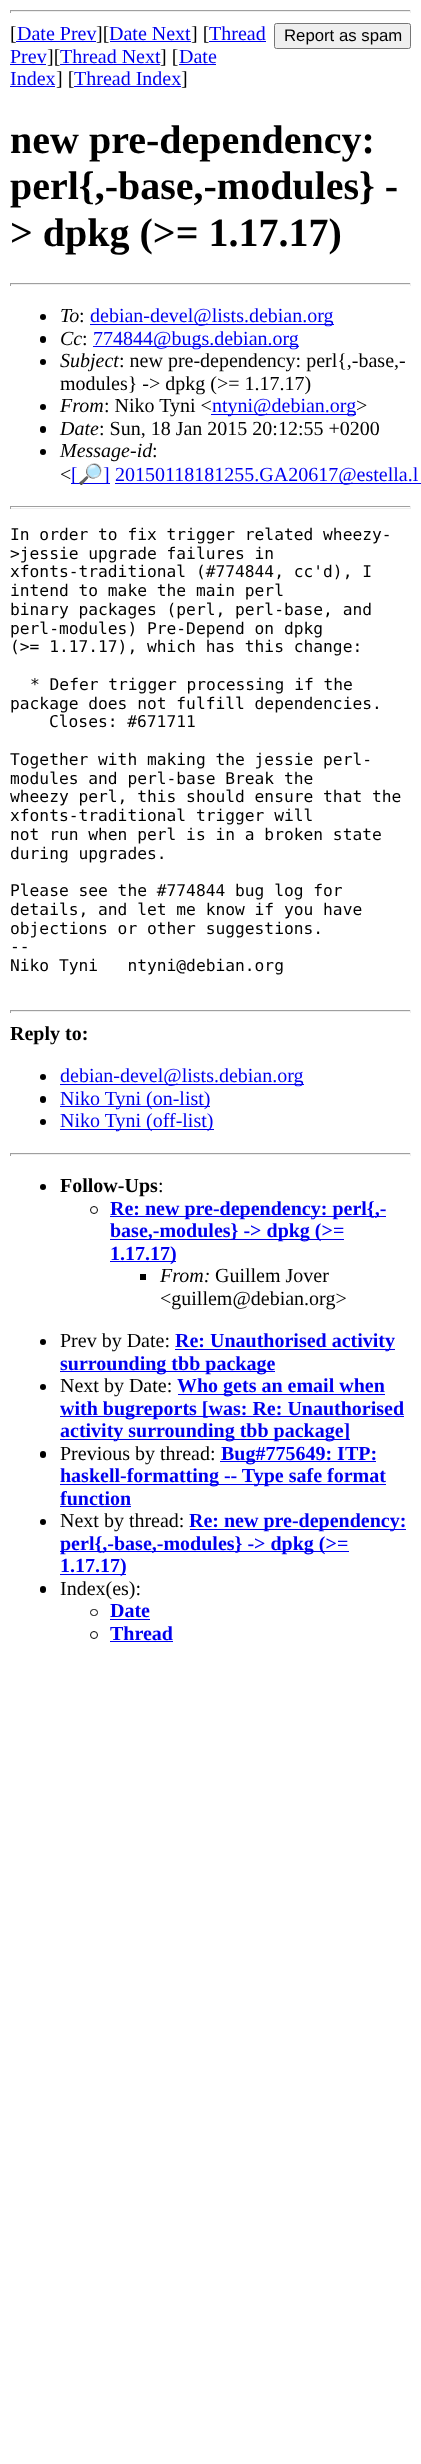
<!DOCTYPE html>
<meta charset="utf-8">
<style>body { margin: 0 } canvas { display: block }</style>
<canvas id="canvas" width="421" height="2464"></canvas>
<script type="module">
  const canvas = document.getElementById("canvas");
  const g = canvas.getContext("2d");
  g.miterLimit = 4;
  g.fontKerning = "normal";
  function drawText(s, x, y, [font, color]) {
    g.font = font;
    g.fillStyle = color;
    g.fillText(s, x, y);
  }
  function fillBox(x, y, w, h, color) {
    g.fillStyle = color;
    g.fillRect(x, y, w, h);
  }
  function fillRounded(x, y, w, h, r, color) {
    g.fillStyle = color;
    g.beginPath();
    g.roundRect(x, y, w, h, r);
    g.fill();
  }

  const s1 = ["20px Liberation Serif", "#000000"];
  const s2 = ["20px Liberation Serif", "#0000EE"];
  const s3 = ["16.75px Liberation Sans", "#000000"];
  const s4 = ["bold 40px Liberation Serif", "#000000"];
  const s5 = ["italic 20px Liberation Serif", "#000000"];
  const s6 = ["20px Noto Color Emoji", "#0000EE"];
  const s7 = ["16.25px DejaVu Sans Mono", "#000000"];
  const s8 = ["bold 20px Liberation Serif", "#000000"];
  const s9 = ["bold 20px Liberation Serif", "#0000EE"];

  fillBox(0, 0, 421, 2464, "#FFFFFF");
  fillBox(10, 10, 401, 1, "#9F9F9F");
  fillBox(410, 10, 1, 3, "#EEEEEE");
  fillBox(10, 11, 401, 1, "#EEEEEE");
  fillBox(10, 10, 1, 3, "#9F9F9F");
  drawText("[", 10, 40, s1);
  drawText("Date Prev", 17, 40, s2);
  fillBox(16, 41, 80, 1, "#0000EE");
  drawText("][", 96, 40, s1);
  drawText("Date Next", 109, 40, s2);
  fillBox(110, 41, 81, 1, "#0000EE");
  drawText("] [", 191, 40, s1);
  drawText("Thread", 209, 40, s2);
  fillBox(209, 41, 57, 1, "#0000EE");
  g.fillStyle = "#EFEFEF";
  g.beginPath();
  g.roundRect(274.5, 23.5, 136, 25, 2);
  g.fill();
  g.strokeStyle = "#767676";
  g.stroke();
  drawText("Report as spam", 284, 41, s3);
  drawText("Prev", 10, 63, s2);
  fillBox(10, 64, 36, 1, "#0000EE");
  drawText("][", 47, 63, s1);
  drawText("Thread Next", 60, 63, s2);
  fillBox(60, 64, 100, 1, "#0000EE");
  drawText("] [", 160, 63, s1);
  drawText("Date", 179, 63, s2);
  fillBox(179, 64, 37, 1, "#0000EE");
  drawText("Index", 10, 85, s2);
  fillBox(10, 86, 45, 1, "#0000EE");
  drawText("] [", 56, 85, s1);
  drawText("Thread Index", 74, 85, s2);
  fillBox(74, 86, 107, 1, "#0000EE");
  drawText("]", 181, 85, s1);
  drawText("new pre-dependency:", 10, 153, s4);
  drawText("perl{,-base,-modules} -", 10, 199, s4);
  drawText("> dpkg (>= 1.17.17)", 10, 246, s4);
  fillBox(10, 283, 401, 1, "#9F9F9F");
  fillBox(410, 283, 1, 3, "#EEEEEE");
  fillBox(10, 284, 401, 1, "#EEEEEE");
  fillBox(10, 283, 1, 3, "#9F9F9F");
  g.fillStyle = "#000000";
  g.beginPath();
  g.arc(43, 317, 3, 0, Math.PI * 2);
  g.fill();
  drawText("To", 60, 322, s5);
  drawText(":", 79, 322, s1);
  fillBox(90, 324, 244, 1, "#0000EE");
  drawText("debian-devel@lists.debian.org", 90, 322, s2);
  fillRounded(40, 336, 6, 7, 3, "#000000");
  drawText("Cc", 60, 345, s5);
  drawText(":", 82, 345, s1);
  fillBox(93, 346, 206, 1, "#0000EE");
  drawText("774844@bugs.debian.org", 93, 345, s2);
  g.fillStyle = "#000000";
  g.beginPath();
  g.arc(43, 362, 3, 0, Math.PI * 2);
  g.fill();
  drawText("Subject", 60, 367, s5);
  drawText(": new pre-dependency: perl{,-base,-", 119, 367, s1);
  drawText("modules} -> dpkg (>= 1.17.17)", 60, 390, s1);
  g.beginPath();
  g.arc(43, 407, 3, 0, Math.PI * 2);
  g.fill();
  drawText("From", 60, 412, s5);
  drawText(": Niko Tyni <", 104, 412, s1);
  fillBox(211, 414, 145, 1, "#0000EE");
  drawText("ntyni@debian.org", 212, 412, s2);
  drawText(">", 356, 412, s1);
  fillRounded(40, 426, 6, 7, 3, "#000000");
  drawText("Date", 60, 435, s5);
  drawText(": Sun, 18 Jan 2015 20:12:55 +0200", 99, 435, s1);
  g.beginPath();
  g.arc(43, 452, 3, 0, Math.PI * 2);
  g.fill();
  drawText("Message-id", 60, 457, s5);
  drawText(":", 152, 457, s1);
  drawText("<", 60, 481, s1);
  fillBox(71, 483, 39, 1, "#0000EE");
  drawText("[", 71, 481, s2);
  drawText("🔎", 78, 481, s6);
  drawText("]", 103, 481, s2);
  fillBox(115, 483, 306, 1, "#0000EE");
  drawText("20150118181255.GA20617@estella.l", 115, 481, s2);
  fillBox(10, 506, 401, 1, "#9F9F9F");
  fillBox(410, 506, 1, 3, "#EEEEEE");
  fillBox(10, 508, 401, 1, "#EEEEEE");
  fillBox(10, 506, 1, 3, "#9F9F9F");
  drawText("In order to fix trigger related wheezy-", 10, 540, s7);
  drawText(">jessie upgrade failures in", 10, 559, s7);
  drawText("xfonts-traditional (#774844, cc'd), I", 10, 577, s7);
  drawText("intend to make the main perl", 10, 596, s7);
  drawText("binary packages (perl, perl-base, and", 10, 615, s7);
  drawText("perl-modules) Pre-Depend on dpkg", 10, 634, s7);
  drawText("(>= 1.17.17), which has this change:", 10, 652, s7);
  drawText("* Defer trigger processing if the", 30, 690, s7);
  drawText("package does not fulfill dependencies.", 10, 709, s7);
  drawText("Closes: #671711", 49, 727, s7);
  drawText("Together with making the jessie perl-", 10, 765, s7);
  drawText("modules and perl-base Break the", 10, 784, s7);
  drawText("wheezy perl, this should ensure that the", 10, 802, s7);
  drawText("xfonts-traditional trigger will", 10, 821, s7);
  drawText("not run when perl is in a broken state", 10, 840, s7);
  drawText("during upgrades.", 10, 859, s7);
  drawText("Please see the #774844 bug log for", 10, 896, s7);
  drawText("details, and let me know if you have", 10, 915, s7);
  drawText("objections or other suggestions.", 10, 934, s7);
  drawText("--", 10, 952, s7);
  drawText("Niko Tyni   ntyni@debian.org", 10, 971, s7);
  fillBox(10, 1010, 401, 1, "#9F9F9F");
  fillBox(410, 1010, 1, 3, "#EEEEEE");
  fillBox(10, 1011, 401, 1, "#EEEEEE");
  fillBox(10, 1010, 1, 3, "#9F9F9F");
  drawText("Reply to:", 10, 1040, s8);
  g.beginPath();
  g.arc(43, 1077, 3, 0, Math.PI * 2);
  g.fill();
  fillBox(60, 1084, 244, 1, "#0000EE");
  drawText("debian-devel@lists.debian.org", 60, 1082, s2);
  fillRounded(40, 1096, 6, 7, 3, "#000000");
  fillBox(60, 1106, 150, 1, "#0000EE");
  drawText("Niko Tyni (on-list)", 60, 1105, s2);
  g.fillStyle = "#000000";
  g.beginPath();
  g.arc(43, 1122, 3, 0, Math.PI * 2);
  g.fill();
  fillBox(60, 1129, 154, 1, "#0000EE");
  drawText("Niko Tyni (off-list)", 60, 1127, s2);
  fillBox(10, 1153, 401, 1, "#9F9F9F");
  fillBox(410, 1153, 1, 3, "#EEEEEE");
  fillBox(10, 1154, 401, 1, "#EEEEEE");
  fillBox(10, 1153, 1, 3, "#9F9F9F");
  g.fillStyle = "#000000";
  g.beginPath();
  g.arc(43, 1187, 3, 0, Math.PI * 2);
  g.fill();
  drawText("Follow-Ups", 60, 1192, s8);
  drawText(":", 158, 1192, s1);
  g.beginPath();
  g.arc(94, 1210, 3.5, 0, Math.PI * 2);
  g.strokeStyle = "#000000";
  g.stroke();
  fillBox(110, 1216, 276, 1, "#0000EE");
  drawText("Re: new pre-dependency: perl{,-", 110, 1215, s9);
  fillBox(110, 1239, 234, 1, "#0000EE");
  drawText("base,-modules} -> dpkg (>=", 110, 1237, s9);
  fillBox(110, 1261, 66, 1, "#0000EE");
  drawText("1.17.17)", 110, 1260, s9);
  fillBox(140, 1274, 6, 6, "#000000");
  drawText("From:", 160, 1282, s5);
  drawText("Guillem Jover", 215, 1282, s1);
  drawText("<guillem@debian.org>", 160, 1305, s1);
  g.beginPath();
  g.arc(43, 1342, 3, 0, Math.PI * 2);
  g.fill();
  drawText("Prev by Date:", 60, 1347, s1);
  fillBox(175, 1349, 220, 1, "#0000EE");
  drawText("Re: Unauthorised activity", 175, 1347, s9);
  fillBox(60, 1371, 215, 1, "#0000EE");
  drawText("surrounding tbb package", 60, 1370, s9);
  g.fillStyle = "#000000";
  g.beginPath();
  g.arc(43, 1387, 3, 0, Math.PI * 2);
  g.fill();
  drawText("Next by Date:", 60, 1392, s1);
  fillBox(178, 1394, 207, 1, "#0000EE");
  drawText("Who gets an email when", 177, 1392, s9);
  fillBox(60, 1416, 344, 1, "#0000EE");
  drawText("with bugreports [was: Re: Unauthorised", 60, 1415, s9);
  fillBox(60, 1439, 290, 1, "#0000EE");
  drawText("activity surrounding tbb package]", 60, 1437, s9);
  fillRounded(40, 1451, 6, 7, 3, "#000000");
  drawText("Previous by thread:", 60, 1460, s1);
  fillBox(220, 1461, 156, 1, "#0000EE");
  drawText("Bug#775649: ITP:", 221, 1460, s9);
  fillBox(60, 1484, 326, 1, "#0000EE");
  drawText("haskell-formatting -- Type safe format", 60, 1482, s9);
  drawText("function", 60, 1505, s9);
  fillBox(60, 1506, 71, 1, "#0000EE");
  g.fillStyle = "#000000";
  g.beginPath();
  g.arc(43, 1522, 3, 0, Math.PI * 2);
  g.fill();
  drawText("Next by thread:", 60, 1527, s1);
  fillBox(190, 1529, 216, 1, "#0000EE");
  drawText("Re: new pre-dependency:", 189, 1527, s9);
  fillBox(60, 1551, 289, 1, "#0000EE");
  drawText("perl{,-base,-modules} -> dpkg (>=", 60, 1550, s9);
  fillBox(60, 1574, 66, 1, "#0000EE");
  drawText("1.17.17)", 60, 1572, s9);
  fillRounded(40, 1586, 6, 7, 3, "#000000");
  drawText("Index(es):", 60, 1595, s1);
  g.beginPath();
  g.roundRect(90.5, 1609.5, 7, 6, 3);
  g.stroke();
  drawText("Date", 110, 1617, s9);
  fillBox(110, 1619, 40, 1, "#0000EE");
  g.beginPath();
  g.arc(94, 1635, 3.5, 0, Math.PI * 2);
  g.stroke();
  drawText("Thread", 110, 1640, s9);
  fillBox(110, 1641, 63, 1, "#0000EE");
</script>
